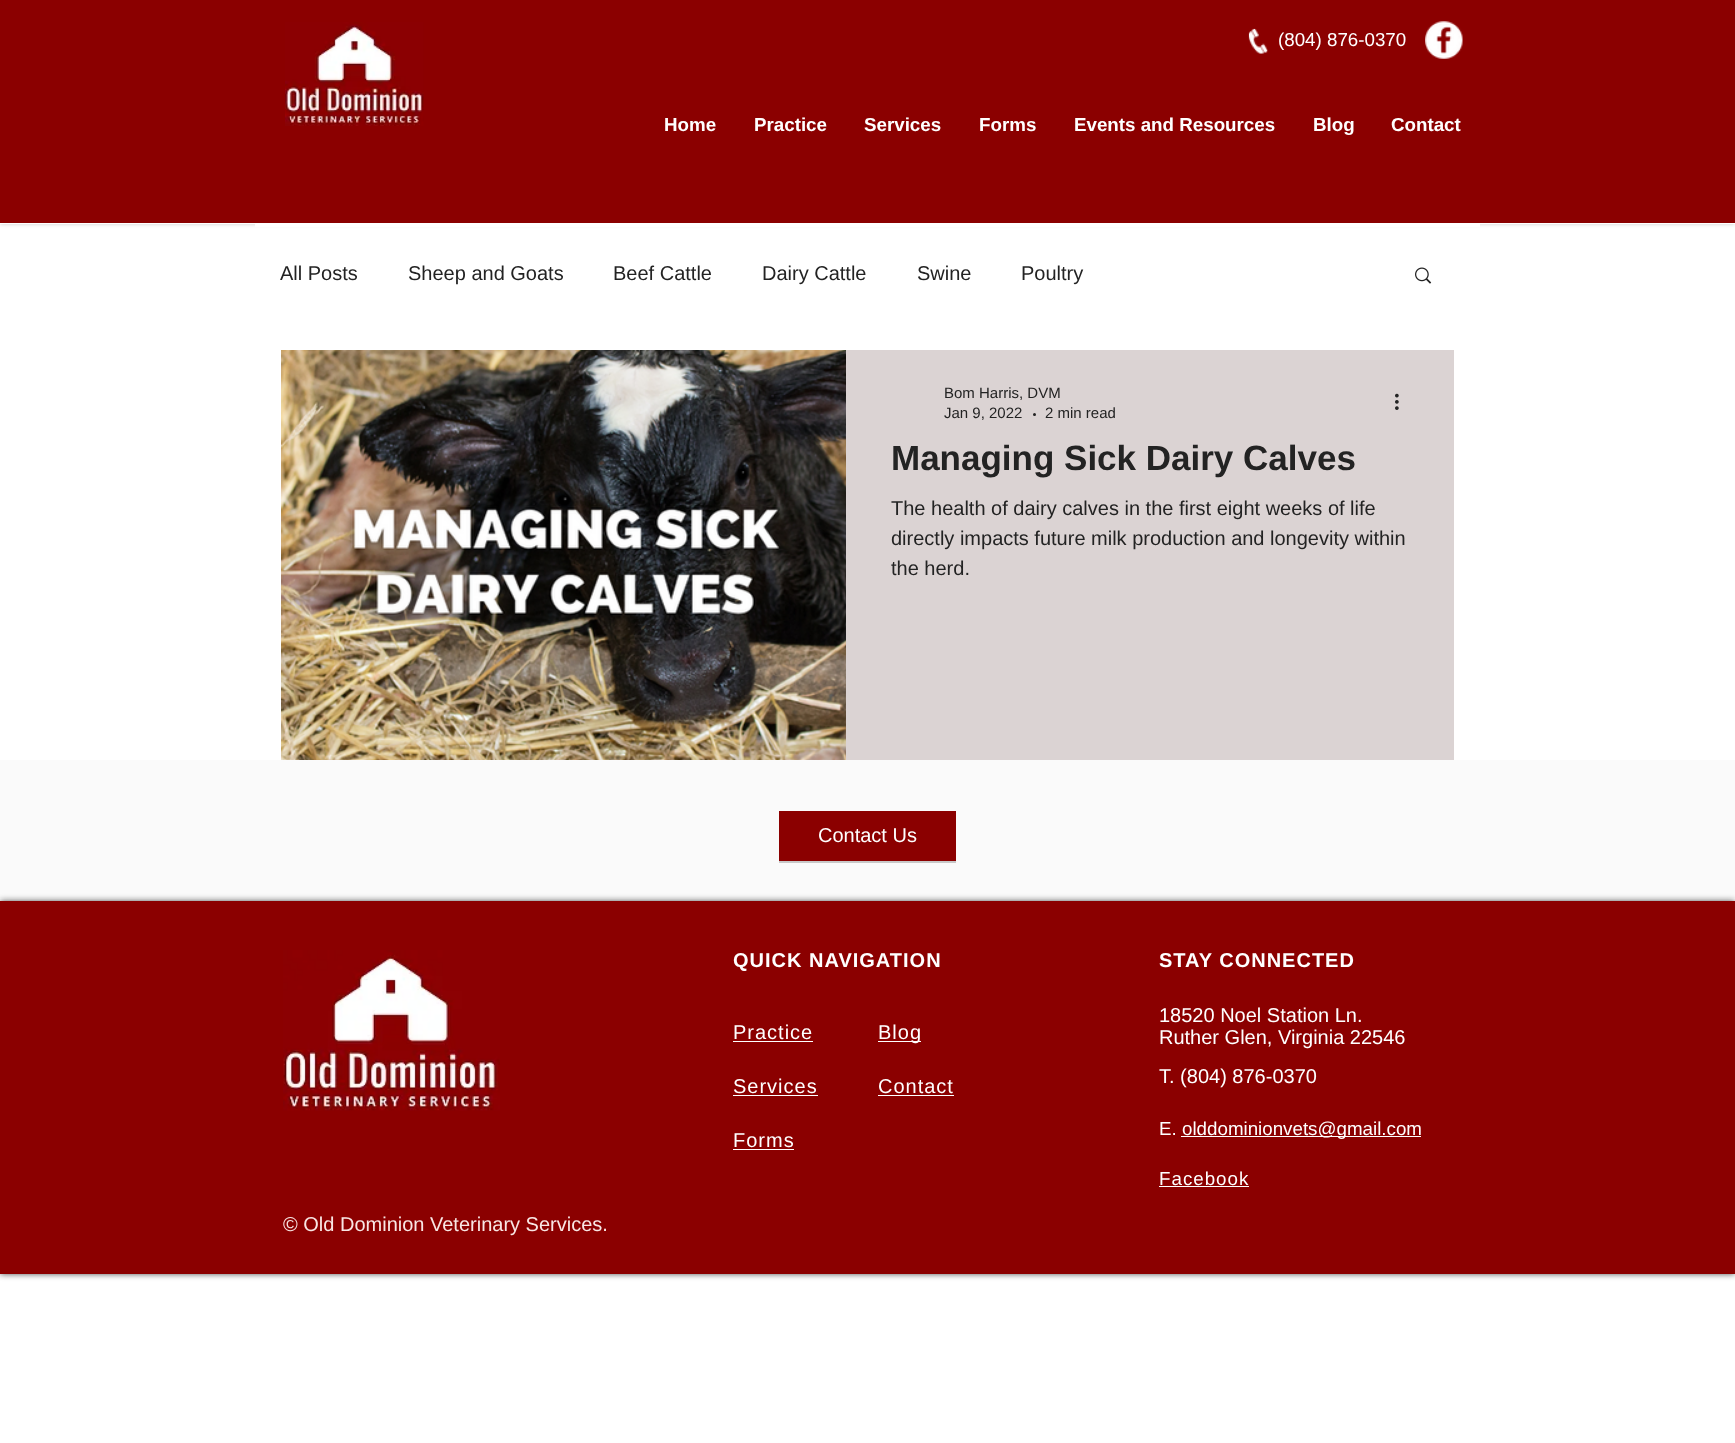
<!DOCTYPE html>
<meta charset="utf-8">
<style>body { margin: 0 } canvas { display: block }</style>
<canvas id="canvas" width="1735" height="1443"></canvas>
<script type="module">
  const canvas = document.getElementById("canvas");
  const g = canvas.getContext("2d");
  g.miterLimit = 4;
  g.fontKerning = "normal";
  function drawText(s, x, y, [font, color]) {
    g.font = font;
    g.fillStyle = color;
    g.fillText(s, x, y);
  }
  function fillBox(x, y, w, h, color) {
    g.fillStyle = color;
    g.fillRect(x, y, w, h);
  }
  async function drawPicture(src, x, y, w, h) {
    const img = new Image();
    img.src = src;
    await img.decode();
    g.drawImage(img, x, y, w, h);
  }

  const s1 = ["18.75px Liberation Sans", "#FFFFFF"];
  const s2 = ["bold 18.75px Liberation Sans", "#FFFFFF"];
  const s3 = ["20px Liberation Sans", "#232323"];
  const s4 = ["15px Liberation Sans", "#232323"];
  const s5 = ["bold 35px Liberation Sans", "#232323"];
  const s6 = ["20px Liberation Sans", "#FFFFFF"];
  const s7 = ["bold 20px Liberation Sans", "#FFFFFF"];
  const s8 = ["20px Liberation Sans", "#F9E6E4"];

  fillBox(0, 0, 1735, 1443, "#FFFFFF");
  g.fillStyle = "rgba(0, 0, 0, 0.2)";
  g.filter = "blur(2px)";
  g.beginPath();
  g.rect(0, 0, 1735, 224);
  g.fill();
  g.filter = "none";
  fillBox(0, 0, 1735, 223, "#8B0000");
  fillBox(0, 223, 1735, 1, "#FFFFFF");
  await drawPicture("pic1.png", 285, 22, 139, 104);
  await drawPicture("pic2.png", 1248, 28, 20, 26);
  drawText("(804) 876-0370", 1278, 46, s1);
  await drawPicture("pic3.png", 1425, 21, 38, 38);
  drawText("Home", 664, 131, s2);
  drawText("Practice", 754, 131, s2);
  drawText("Services", 864, 131, s2);
  drawText("Forms", 979, 131, s2);
  drawText("Events and Resources", 1074, 131, s2);
  drawText("Blog", 1313, 131, s2);
  drawText("Contact", 1391, 131, s2);
  fillBox(255, 224, 1225, 3, "#FFFFFF");
  drawText("All Posts", 280, 280, s3);
  drawText("Sheep and Goats", 408, 280, s3);
  drawText("Beef Cattle", 613, 280, s3);
  drawText("Dairy Cattle", 762, 280, s3);
  drawText("Swine", 917, 280, s3);
  drawText("Poultry", 1021, 280, s3);
  await drawPicture("pic4.png", 1415, 267, 17, 17);
  await drawPicture("pic5.png", 281, 350, 565, 410);
  fillBox(846, 350, 608, 410, "#DBD3D3");
  drawText("Bom Harris, DVM", 944, 398, s4);
  drawText("Jan 9, 2022", 944, 418, s4);
  g.beginPath();
  g.arc(1034.5, 414.5, 1.5, 0, Math.PI * 2);
  g.fill();
  drawText("2 min read", 1045, 418, s4);
  await drawPicture("pic6.png", 1395, 393, 4, 17);
  drawText("Managing Sick Dairy Calves", 891, 470, s5);
  drawText("The health of dairy calves in the first eight weeks of life", 891, 515, s3);
  drawText("directly impacts future milk production and longevity within", 891, 545, s3);
  drawText("the herd.", 891, 575, s3);
  fillBox(0, 760, 1735, 138, "#FAFAFA");
  g.fillStyle = "rgba(0, 0, 0, 0.2)";
  g.filter = "blur(0.5px)";
  g.beginPath();
  g.rect(779, 813, 177, 50);
  g.fill();
  g.filter = "none";
  fillBox(779, 811, 177, 50, "#8B0000");
  drawText("Contact Us", 818, 842, s6);
  g.fillStyle = "rgba(0, 0, 0, 0.7)";
  g.filter = "blur(3px)";
  g.beginPath();
  g.rect(0, 901, 1735, 373);
  g.fill();
  g.filter = "none";
  fillBox(0, 901, 1735, 373, "#8B0000");
  await drawPicture("pic7.png", 283, 950, 217, 161);
  g.letterSpacing = "1px";
  drawText("QUICK NAVIGATION", 733, 967, s7);
  drawText("STAY CONNECTED", 1159, 967, s7);
  drawText("Practice", 733, 1039, s6);
  fillBox(733, 1041, 80, 1, "#FFFFFF");
  drawText("Services", 733, 1093, s6);
  fillBox(733, 1095, 85, 1, "#FFFFFF");
  drawText("Forms", 733, 1147, s6);
  fillBox(733, 1149, 61, 1, "#FFFFFF");
  fillBox(878, 1041, 43, 1, "#FFFFFF");
  drawText("Blog", 878, 1039, s6);
  drawText("Contact", 878, 1093, s6);
  fillBox(878, 1095, 76, 1, "#FFFFFF");
  g.letterSpacing = "0px";
  drawText("18520 Noel Station Ln.", 1159, 1022, s6);
  drawText("Ruther Glen, Virginia 22546", 1159, 1044, s6);
  drawText("T. (804) 876-0370", 1159, 1083, s6);
  drawText("E.", 1159, 1135, s1);
  fillBox(1181, 1136, 240, 1, "#FFFFFF");
  drawText("olddominionvets@gmail.com", 1182, 1135, s1);
  g.letterSpacing = "1px";
  drawText("Facebook", 1159, 1185, s1);
  fillBox(1159, 1186, 90, 1, "#FFFFFF");
  g.letterSpacing = "0px";
  drawText("© Old Dominion Veterinary Services.", 283, 1231, s8);
</script>
